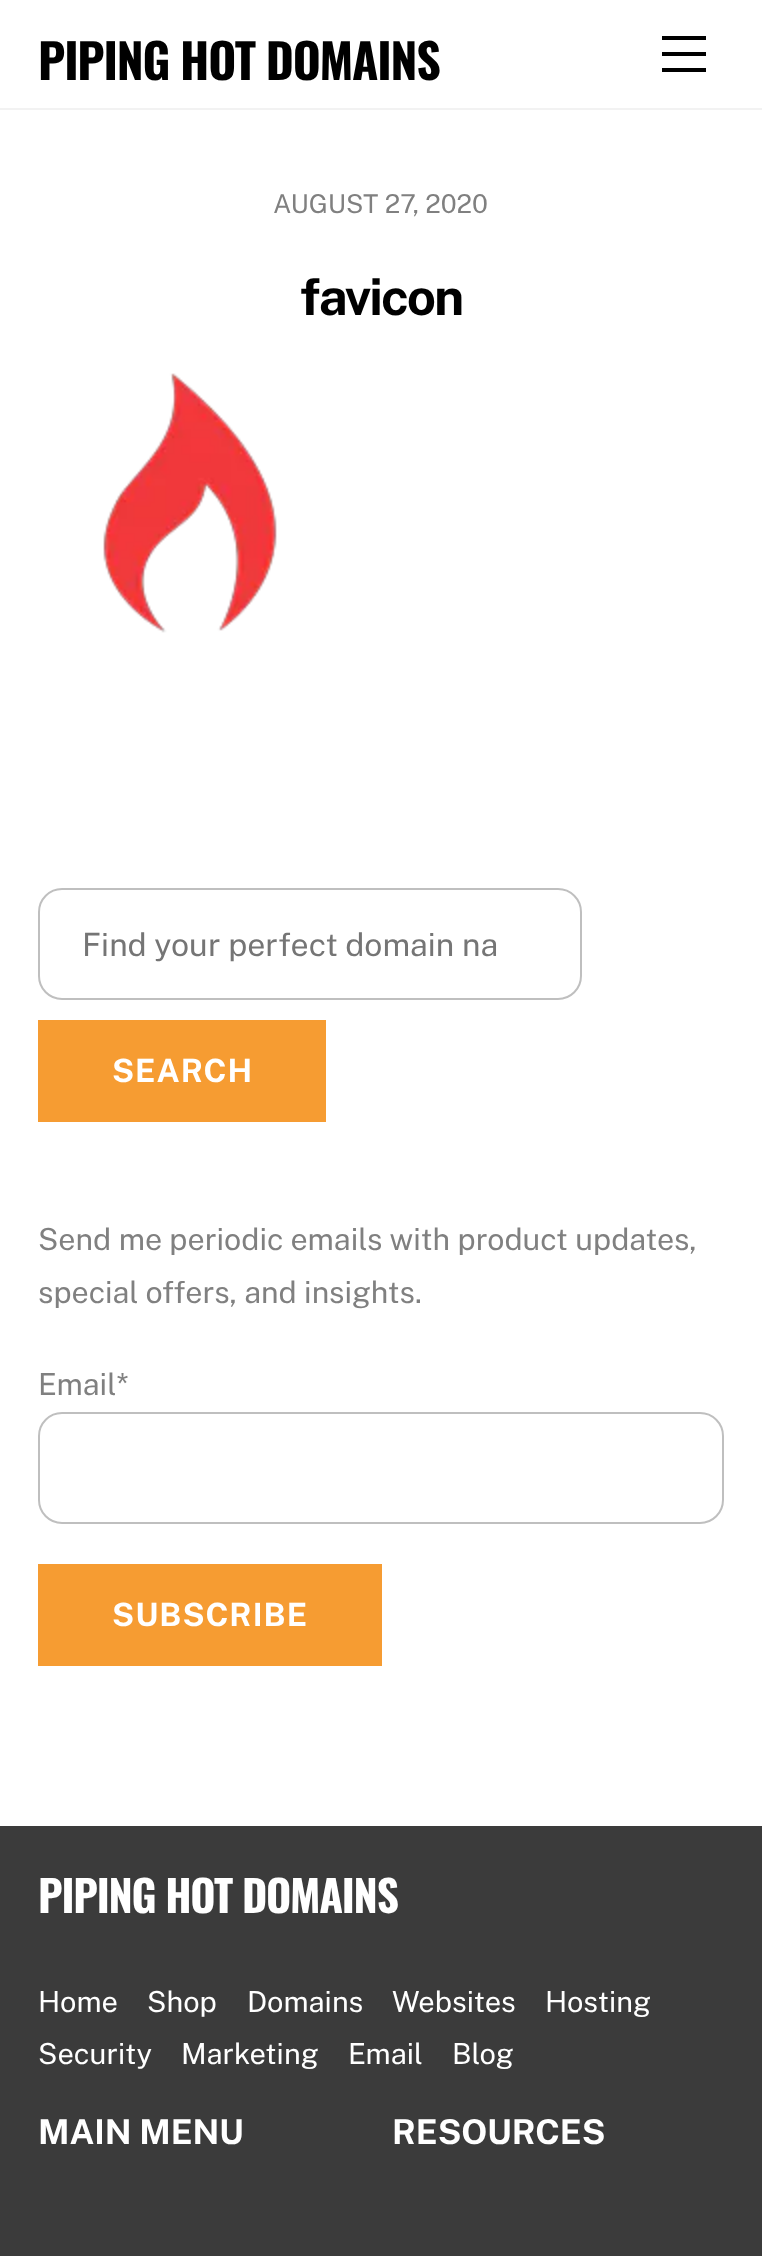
<!DOCTYPE html>
<meta charset="utf-8">
<style>body { margin: 0 } canvas { display: block }</style>
<canvas id="canvas" width="762" height="2256"></canvas>
<script type="module">
  const canvas = document.getElementById("canvas");
  const g = canvas.getContext("2d");
  g.miterLimit = 4;
  g.fontKerning = "normal";
  function drawText(s, x, y, [font, color]) {
    g.font = font;
    g.fillStyle = color;
    g.fillText(s, x, y);
  }
  function fillBox(x, y, w, h, color) {
    g.fillStyle = color;
    g.fillRect(x, y, w, h);
  }
  async function drawPicture(src, x, y, w, h) {
    const img = new Image();
    img.src = src;
    await img.decode();
    g.drawImage(img, x, y, w, h);
  }

  const s1 = ["bold 48px Oswald", "#000000"];
  const s2 = ["26px Public Sans", "#808080"];
  const s3 = ["bold 51px Public Sans", "#000000"];
  const s4 = ["32px Public Sans", "#757575"];
  const s5 = ["bold 32px Public Sans", "#FFFFFF"];
  const s6 = ["30.4px Public Sans", "#808080"];
  const s7 = ["bold 43.25px Oswald", "#FFFFFF"];
  const s8 = ["29px Public Sans", "#FFFFFF"];
  const s9 = ["bold 34.25px Public Sans", "#FFFFFF"];

  fillBox(0, 0, 762, 2256, "#FFFFFF");
  fillBox(0, 108, 762, 2, "#F2F2F2");
  g.letterSpacing = "-1.25px";
  drawText("PIPING HOT DOMAINS", 38, 80, s1);
  fillBox(662, 68, 44, 4, "#000000");
  fillBox(662, 36, 44, 4, "#000000");
  fillBox(662, 52, 44, 4, "#000000");
  g.letterSpacing = "0px";
  drawText("AUGUST 27, 2020", 273, 213, s2);
  g.letterSpacing = "-2px";
  drawText("favicon", 300, 315, s3);
  await drawPicture("pic1.png", 103, 373, 174, 260);
  g.beginPath();
  g.roundRect(39, 889, 542, 110, 23);
  g.strokeStyle = "#BFBFBF";
  g.lineWidth = 2;
  g.stroke();
  g.letterSpacing = "0px";
  drawText("Find your perfect domain na", 82, 956, s4);
  fillBox(38, 1020, 288, 102, "#F69C32");
  g.letterSpacing = "1px";
  drawText("SEARCH", 112, 1082, s5);
  g.letterSpacing = "0px";
  drawText("Send me periodic emails with product updates,", 38, 1250, s6);
  drawText("special offers, and insights.", 38, 1303, s6);
  drawText("Email*", 38, 1395, s6);
  g.beginPath();
  g.roundRect(39, 1413, 684, 110, 23);
  g.stroke();
  fillBox(38, 1564, 344, 102, "#F69C32");
  g.letterSpacing = "1px";
  drawText("SUBSCRIBE", 112, 1626, s5);
  fillBox(0, 1826, 762, 430, "#3B3B3B");
  g.letterSpacing = "-1.25px";
  drawText("PIPING HOT DOMAINS", 38, 1913, s7);
  g.letterSpacing = "0px";
  drawText("Home", 38, 2012, s8);
  drawText("Shop", 147, 2012, s8);
  drawText("Domains", 247, 2012, s8);
  drawText("Websites", 392, 2012, s8);
  drawText("Hosting", 545, 2012, s8);
  drawText("Security", 38, 2064, s8);
  drawText("Marketing", 181, 2064, s8);
  drawText("Email", 348, 2064, s8);
  drawText("Blog", 452, 2064, s8);
  drawText("MAIN MENU", 38, 2144, s9);
  drawText("RESOURCES", 392, 2144, s9);
</script>
